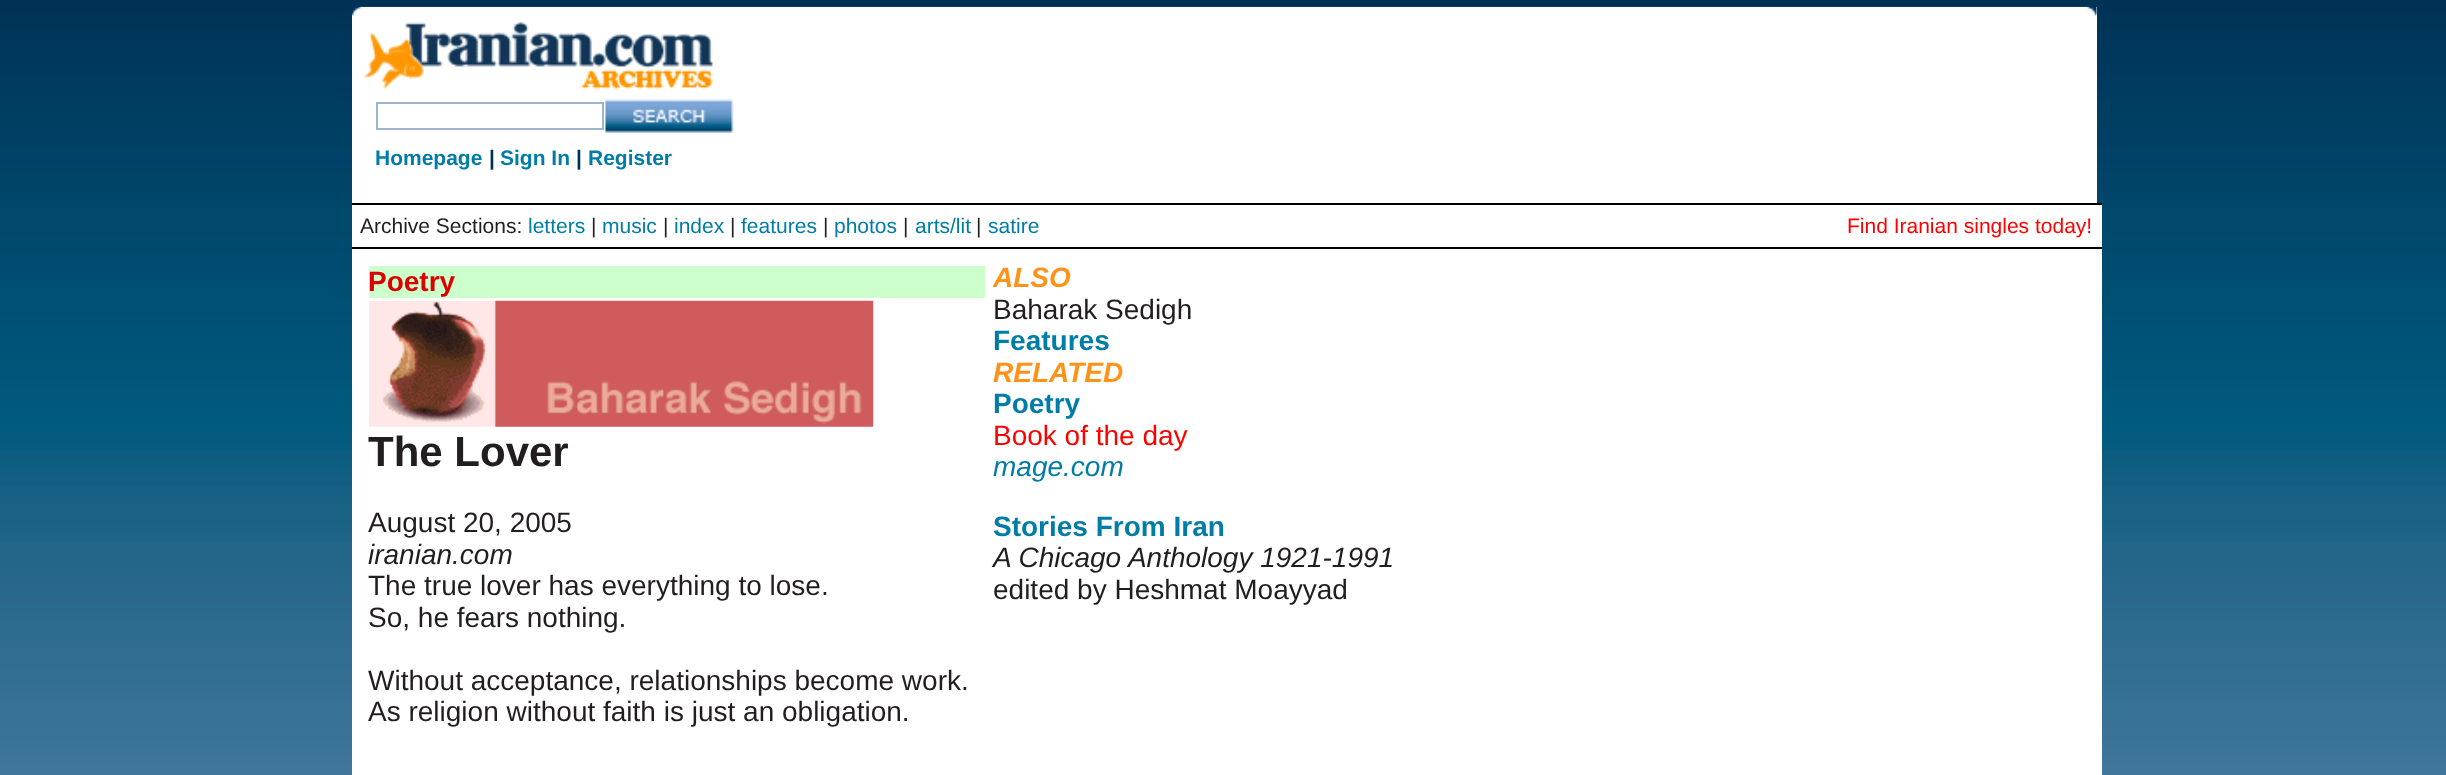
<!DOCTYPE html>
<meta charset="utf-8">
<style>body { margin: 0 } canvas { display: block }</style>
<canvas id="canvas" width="2446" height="775"></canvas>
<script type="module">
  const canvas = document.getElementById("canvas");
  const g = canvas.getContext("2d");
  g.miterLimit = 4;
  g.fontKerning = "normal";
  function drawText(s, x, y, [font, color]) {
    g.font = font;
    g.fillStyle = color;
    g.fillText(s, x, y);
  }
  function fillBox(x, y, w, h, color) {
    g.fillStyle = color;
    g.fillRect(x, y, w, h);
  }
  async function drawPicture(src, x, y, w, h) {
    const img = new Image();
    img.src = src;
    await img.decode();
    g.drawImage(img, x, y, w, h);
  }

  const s1 = ["bold 21px Liberation Sans", "#007DA6"];
  const s2 = ["bold 21px Liberation Sans", "#003154"];
  const s3 = ["21px Liberation Sans", "#221E1F"];
  const s4 = ["21px Liberation Sans", "#007DA6"];
  const s5 = ["21px Liberation Sans", "#FF0000"];
  const s6 = ["bold 28px Liberation Sans", "#DD0000"];
  const s7 = ["bold 42px Liberation Sans", "#221E1F"];
  const s8 = ["28px Liberation Sans", "#221E1F"];
  const s9 = ["italic 28px Liberation Sans", "#221E1F"];
  const s10 = ["italic bold 28px Liberation Sans", "#FF9218"];
  const s11 = ["bold 28px Liberation Sans", "#007DA6"];
  const s12 = ["28px Liberation Sans", "#FF0000"];
  const s13 = ["italic 28px Liberation Sans", "#007DA6"];

  fillBox(0, 0, 2446, 775, "#FFFFFF");
  await drawPicture("pic1.png", 0, 0, 2446, 775);
  fillBox(352, 7, 1745, 196, "#FFFFFF");
  await drawPicture("pic2.png", 351, 6, 1746, 10);
  await drawPicture("pic3.png", 364, 22, 349, 68);
  g.strokeStyle = "#9EB5CC";
  g.lineWidth = 2;
  g.strokeRect(377, 103, 226, 26);
  await drawPicture("pic4.png", 605, 99, 129, 34);
  drawText("Homepage", 375, 165, s1);
  drawText("|", 489, 165, s2);
  drawText("Sign In", 500, 165, s1);
  drawText("|", 576, 165, s2);
  drawText("Register", 588, 165, s1);
  fillBox(352, 205, 1750, 42, "#FFFFFF");
  fillBox(352, 203, 1750, 2, "#000000");
  drawText("Archive Sections:", 360, 233, s3);
  drawText("letters", 528, 233, s4);
  drawText("|", 591, 233, s3);
  drawText("music", 602, 233, s4);
  drawText("|", 663, 233, s3);
  drawText("index", 674, 233, s4);
  drawText("|", 730, 233, s3);
  drawText("features", 741, 233, s4);
  drawText("|", 823, 233, s3);
  drawText("photos", 834, 233, s4);
  drawText("|", 903, 233, s3);
  drawText("arts/lit", 915, 233, s4);
  drawText("|", 976, 233, s3);
  drawText("satire", 988, 233, s4);
  drawText("Find Iranian singles today!", 1847, 233, s5);
  fillBox(352, 249, 1750, 526, "#FFFFFF");
  fillBox(352, 247, 1750, 2, "#000000");
  fillBox(369, 266, 616, 32, "#CCFFCC");
  drawText("Poetry", 368, 291, s6);
  await drawPicture("pic5.png", 369, 300, 505, 127);
  drawText("The Lover", 368, 466, s7);
  drawText("August 20, 2005", 368, 532, s8);
  drawText("iranian.com", 368, 564, s9);
  drawText("The true lover has everything to lose.", 368, 595, s8);
  drawText("So, he fears nothing.", 368, 627, s8);
  drawText("Without acceptance, relationships become work.", 368, 690, s8);
  drawText("As religion without faith is just an obligation.", 368, 721, s8);
  drawText("ALSO", 993, 287, s10);
  drawText("Baharak Sedigh", 993, 319, s8);
  drawText("Features", 993, 350, s11);
  drawText("RELATED", 993, 382, s10);
  drawText("Poetry", 993, 413, s11);
  drawText("Book of the day", 993, 445, s12);
  drawText("mage.com", 993, 476, s13);
  drawText("Stories From Iran", 993, 536, s11);
  drawText("A Chicago Anthology 1921-1991", 993, 567, s9);
  drawText("edited by Heshmat Moayyad", 993, 599, s8);
</script>
